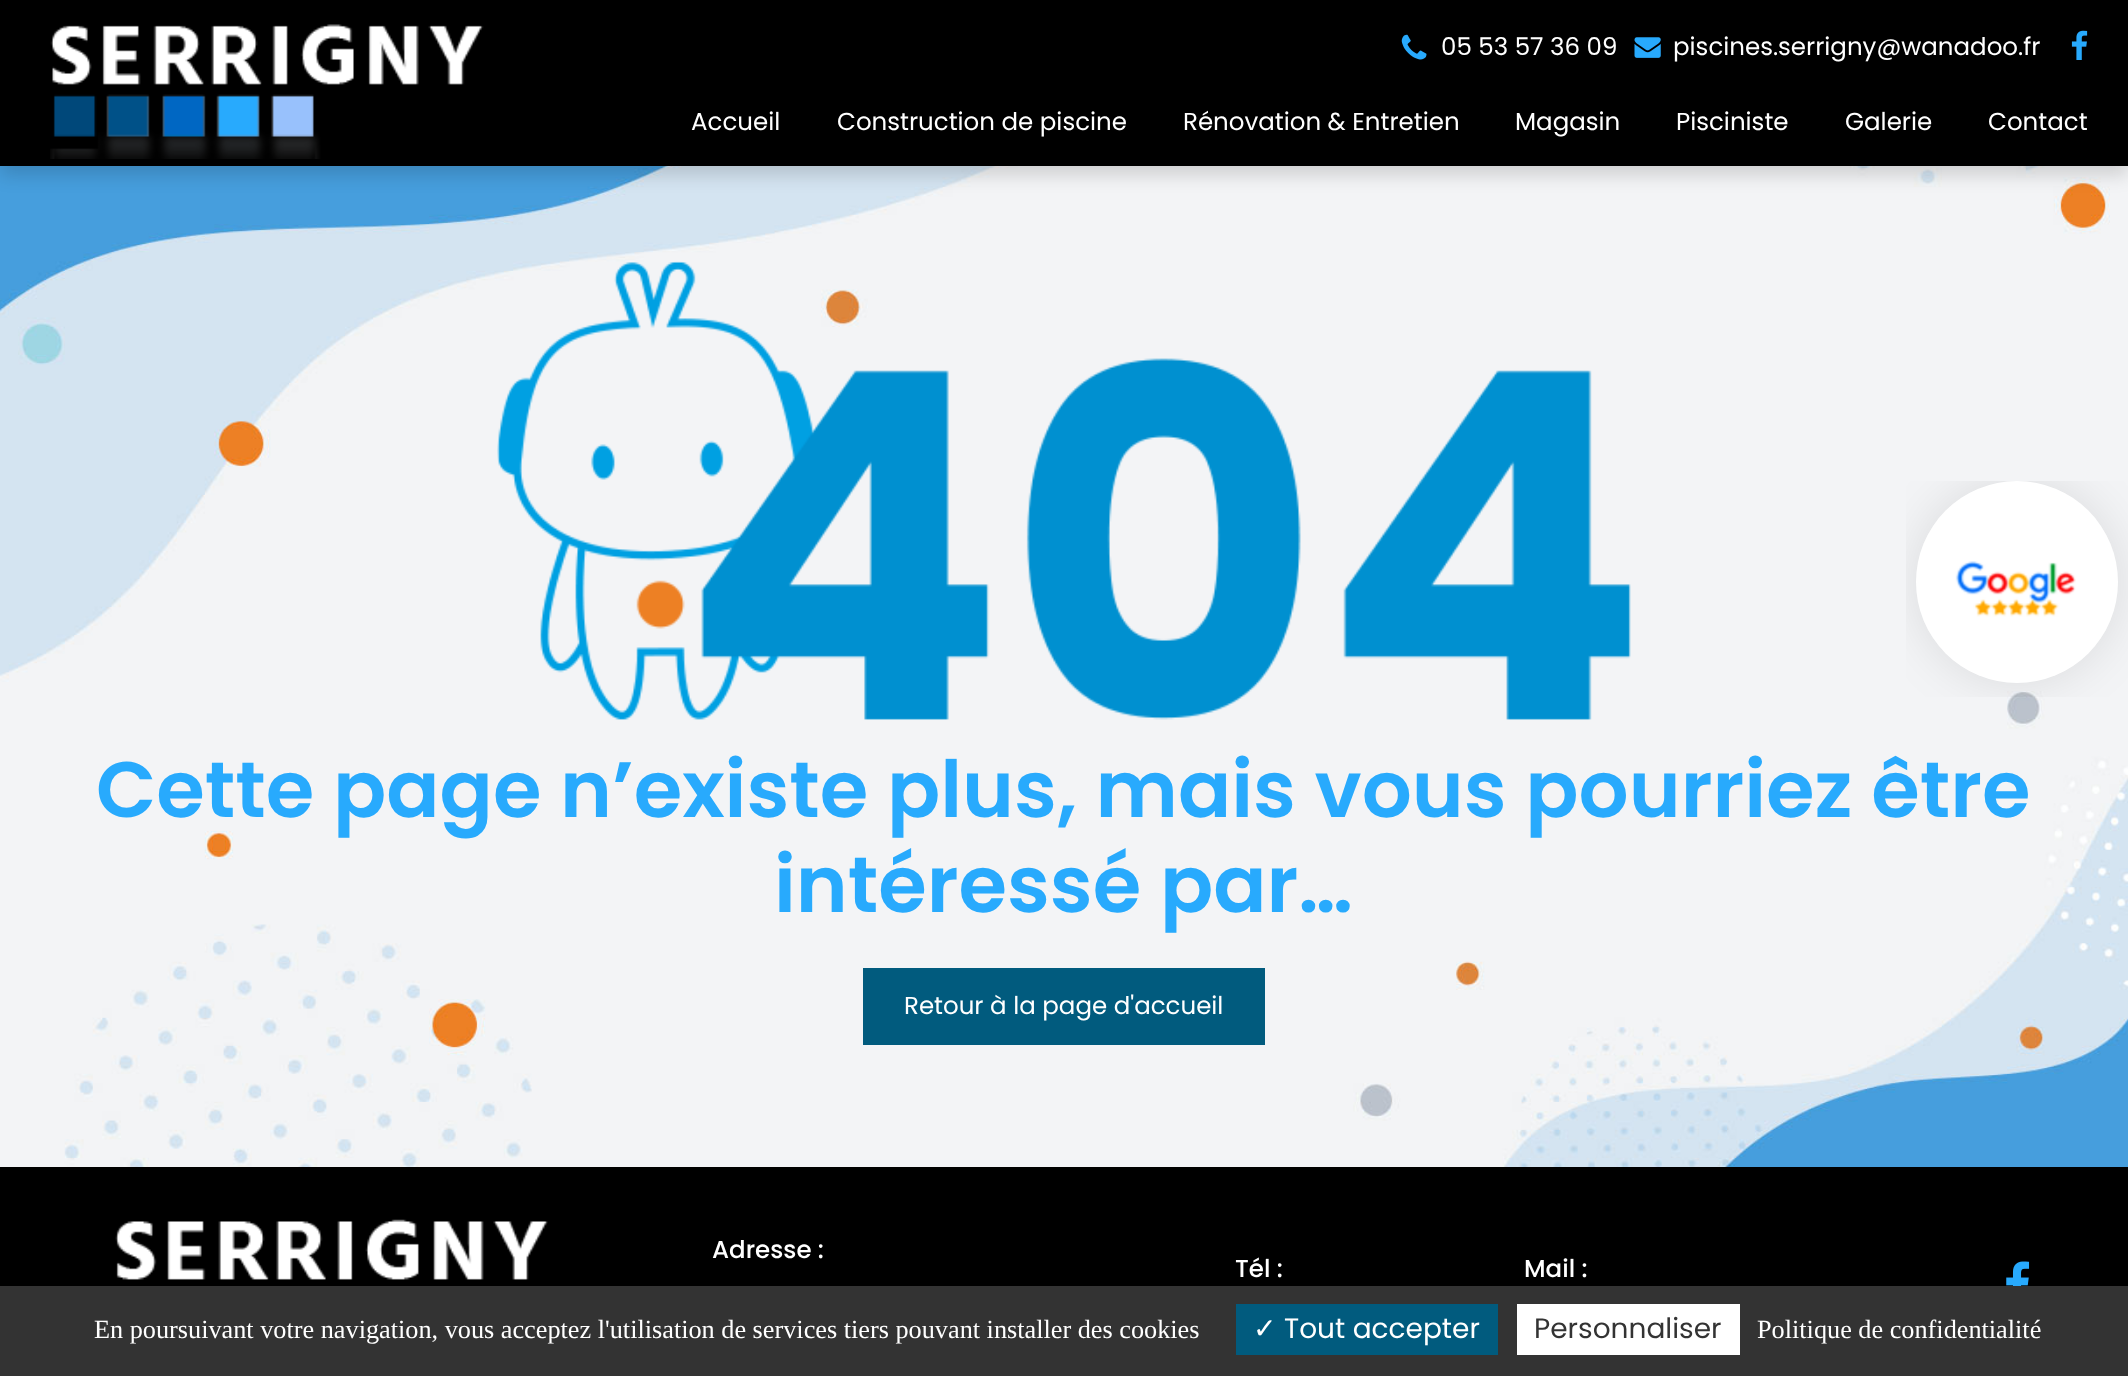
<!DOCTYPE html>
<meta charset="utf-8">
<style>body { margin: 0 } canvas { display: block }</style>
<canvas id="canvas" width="2128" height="1376"></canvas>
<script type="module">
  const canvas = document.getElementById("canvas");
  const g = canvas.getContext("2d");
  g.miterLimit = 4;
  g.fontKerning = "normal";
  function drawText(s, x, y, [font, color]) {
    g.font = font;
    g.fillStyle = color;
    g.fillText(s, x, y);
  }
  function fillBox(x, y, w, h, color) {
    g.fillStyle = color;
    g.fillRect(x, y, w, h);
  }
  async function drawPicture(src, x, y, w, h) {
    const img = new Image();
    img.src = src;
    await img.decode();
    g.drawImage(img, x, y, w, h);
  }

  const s1 = ["24.5px Poppins", "#FFFFFF"];
  const s2 = ["600 78.6px Poppins", "#28AAFD"];
  const s3 = ["500 24.5px Poppins", "#FFFFFF"];
  const s4 = ["26.25px Liberation Serif", "#FFFFFF"];
  const s5 = ["28px DejaVu Sans", "#FFFFFF"];
  const s6 = ["28px Poppins", "#FFFFFF"];
  const s7 = ["28px Poppins", "#333333"];

  fillBox(0, 0, 2128, 1376, "#FFFFFF");
  await drawPicture("pic5.png", 0, 166, 2128, 1001);
  g.fillStyle = "rgba(0, 0, 0, 0.15)";
  g.filter = "blur(9px)";
  g.beginPath();
  g.rect(0, 9, 2128, 166);
  g.fill();
  g.filter = "none";
  fillBox(0, 0, 2128, 166, "#000000");
  await drawPicture("pic1.png", 50, 24, 434, 135);
  await drawPicture("pic2.png", 1401, 34, 26, 26);
  drawText("05 53 57 36 09", 1441, 55, s1);
  await drawPicture("pic3.png", 1634, 37, 27, 21);
  drawText("piscines.serrigny@wanadoo.fr", 1673, 55, s1);
  await drawPicture("pic4.png", 2071, 30, 17, 30);
  drawText("Accueil", 691, 130, s1);
  drawText("Construction de piscine", 837, 130, s1);
  drawText("Rénovation & Entretien", 1183, 130, s1);
  drawText("Magasin", 1515, 130, s1);
  drawText("Pisciniste", 1676, 130, s1);
  drawText("Galerie", 1845, 130, s1);
  drawText("Contact", 1988, 130, s1);
  await drawPicture("pic6.png", 497, 261, 1134, 459);
  drawText("Cette page n’existe plus, mais vous pourriez être", 96, 817, s2);
  drawText("intéressé par…", 774, 912, s2);
  fillBox(863, 968, 402, 77, "#015B7E");
  drawText("Retour à la page d'accueil", 904, 1014, s1);
  fillBox(0, 1167, 2128, 119, "#000000");
  g.save();
  g.beginPath();
  g.rect(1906, 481, 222, 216);
  g.clip();
  g.fillStyle = "rgba(0, 0, 0, 0.1)";
  g.filter = "blur(24.5px)";
  g.beginPath();
  g.roundRect(1916, 481, 202, 202, 101);
  g.fill();
  g.filter = "none";
  g.restore();
  g.fillStyle = "#FFFFFF";
  g.beginPath();
  g.arc(2017, 582, 101, 0, Math.PI * 2);
  g.fill();
  await drawPicture("pic7.png", 1955, 561, 121, 56);
  await drawPicture("pic8.png", 115, 1219, 433, 61);
  drawText("Adresse :", 712, 1258, s3);
  drawText("Tél :", 1235, 1277, s3);
  drawText("Mail :", 1524, 1277, s3);
  await drawPicture("pic9.png", 2006, 1261, 24, 25);
  fillBox(0, 1286, 2128, 90, "#333333");
  drawText("En poursuivant votre navigation, vous acceptez l'utilisation de services tiers pouvant installer des cookies", 94, 1338, s4);
  fillBox(1236, 1304, 262, 51, "#015B7E");
  drawText("✓", 1253, 1338, s5);
  drawText("Tout accepter", 1284, 1338, s6);
  fillBox(1517, 1304, 223, 51, "#FFFFFF");
  drawText("Personnaliser", 1534, 1338, s7);
  drawText("Politique de confidentialité", 1757, 1338, s4);
</script>
